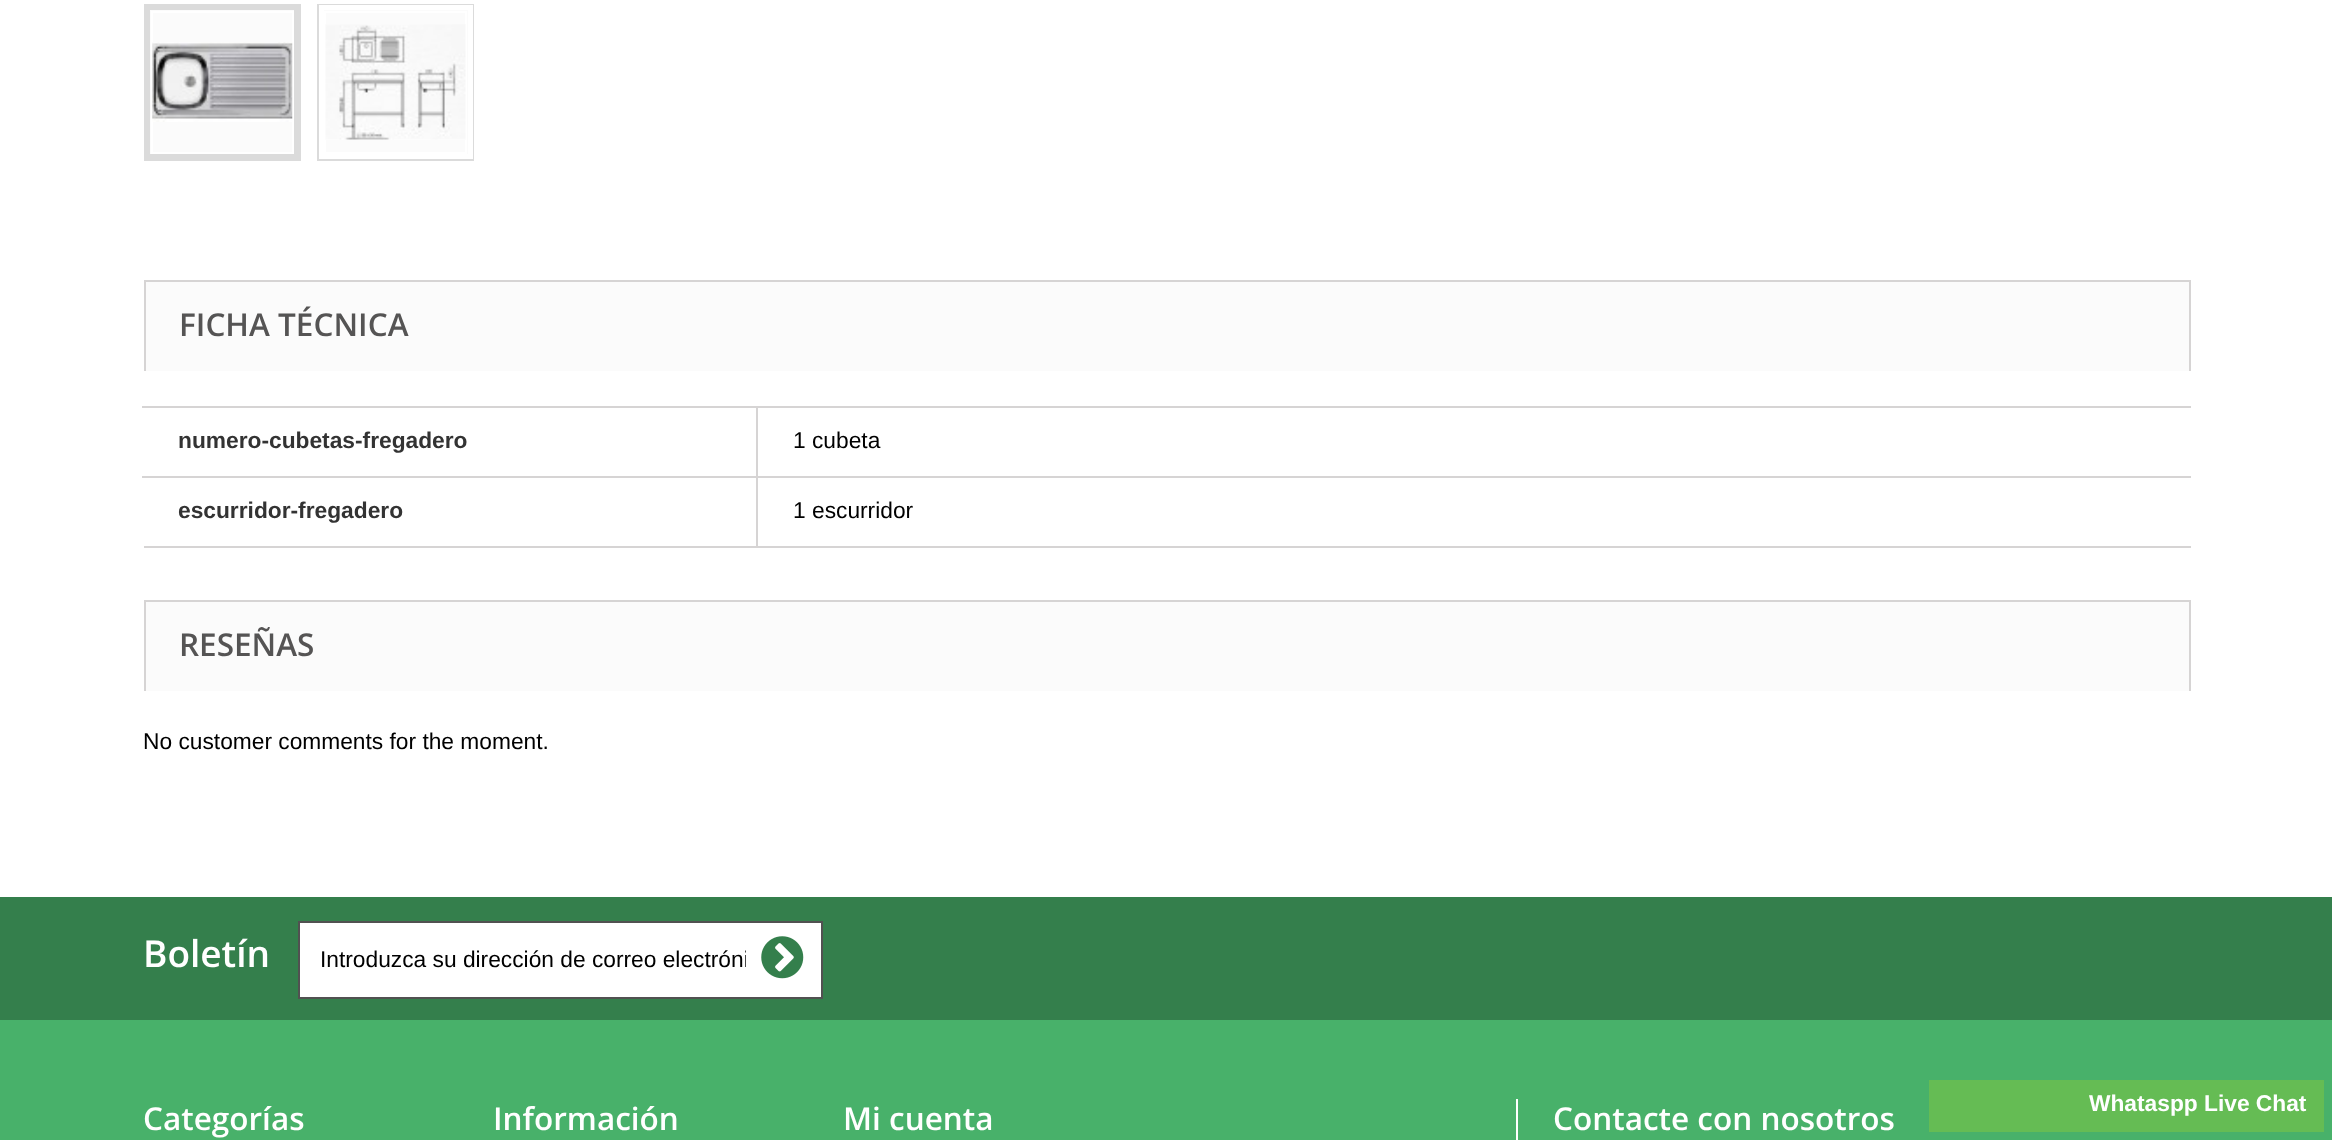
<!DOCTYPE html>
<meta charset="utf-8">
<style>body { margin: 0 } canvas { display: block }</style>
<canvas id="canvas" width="2332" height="1140"></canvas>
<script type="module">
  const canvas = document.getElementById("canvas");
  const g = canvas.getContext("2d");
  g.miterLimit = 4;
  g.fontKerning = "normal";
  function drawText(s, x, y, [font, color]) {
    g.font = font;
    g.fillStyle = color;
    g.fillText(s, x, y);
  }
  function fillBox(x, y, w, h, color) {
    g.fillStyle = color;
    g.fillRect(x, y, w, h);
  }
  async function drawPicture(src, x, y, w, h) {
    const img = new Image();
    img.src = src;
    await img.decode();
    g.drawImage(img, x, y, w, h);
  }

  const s1 = ["600 31.5px Open Sans", "#555454"];
  const s2 = ["bold 22.75px Liberation Sans", "#333333"];
  const s3 = ["22.75px Liberation Sans", "#000000"];
  const s4 = ["600 37px Open Sans", "#FFFFFF"];
  const s5 = ["600 31.5px Open Sans", "#FFFFFF"];
  const s6 = ["bold 22.75px Liberation Sans", "#FFFFFF"];

  fillBox(0, 0, 2332, 1140, "#FFFFFF");
  g.strokeStyle = "#DBDBDB";
  g.lineWidth = 2;
  g.strokeRect(145, 5, 155, 155);
  g.fillStyle = "#FBFBFB";
  g.beginPath();
  g.rect(147.5, 7.5, 149, 149);
  g.fill();
  g.lineWidth = 5;
  g.stroke();
  g.strokeStyle = "#FFFFFF";
  g.lineWidth = 2;
  g.strokeRect(152, 12, 141, 141);
  await drawPicture("pic1.png", 152, 42, 141, 80);
  g.strokeStyle = "#DBDBDB";
  g.strokeRect(318, 5, 155, 155);
  g.beginPath();
  g.rect(321.5, 7.5, 149, 149);
  g.fill();
  g.strokeStyle = "#FFFFFF";
  g.lineWidth = 5;
  g.stroke();
  g.lineWidth = 2;
  g.strokeRect(325, 12, 141, 141);
  await drawPicture("pic2.png", 325, 24, 141, 116);
  fillBox(146, 282, 2043, 89, "#FBFBFB");
  fillBox(144, 280, 2047, 2, "#D6D4D4");
  fillBox(2189, 280, 2, 91, "#D6D4D4");
  fillBox(144, 280, 2, 91, "#D6D4D4");
  drawText("FICHA TÉCNICA", 179, 336, s1);
  fillBox(144, 546, 2047, 2, "#D6D4D4");
  fillBox(142, 406, 2049, 2, "#D6D4D4");
  drawText("numero-cubetas-fregadero", 178, 448, s2);
  drawText("1 cubeta", 793, 448, s3);
  fillBox(142, 476, 2049, 2, "#D6D4D4");
  fillBox(756, 406, 2, 142, "#D6D4D4");
  drawText("escurridor-fregadero", 178, 518, s2);
  drawText("1 escurridor", 793, 518, s3);
  fillBox(146, 602, 2043, 89, "#FBFBFB");
  fillBox(144, 600, 2047, 2, "#D6D4D4");
  fillBox(2189, 600, 2, 91, "#D6D4D4");
  fillBox(144, 600, 2, 91, "#D6D4D4");
  drawText("RESEÑAS", 179, 656, s1);
  drawText("No customer comments for the moment.", 143, 749, s3);
  fillBox(0, 1020, 2332, 120, "#48B16A");
  fillBox(0, 897, 2332, 123, "#347F4C");
  drawText("Boletín", 143, 967, s4);
  g.beginPath();
  g.rect(299, 922, 523, 76);
  g.fill();
  g.strokeStyle = "#515151";
  g.stroke();
  g.save();
  g.beginPath();
  g.rect(320, 947, 426, 26);
  g.clip();
  drawText("Introduzca su dirección de correo electróni", 320, 967, s3);
  g.restore();
  await drawPicture("pic3.png", 761, 936, 43, 43);
  drawText("Categorías", 143, 1130, s5);
  drawText("Información", 493, 1130, s5);
  drawText("Mi cuenta", 843, 1130, s5);
  fillBox(1516, 1099, 2, 41, "#FFFFFF");
  drawText("Contacte con nosotros", 1553, 1130, s5);
  fillBox(1929, 1080, 395, 52, "#65BC54");
  drawText("Whataspp Live Chat", 2089, 1111, s6);
</script>
